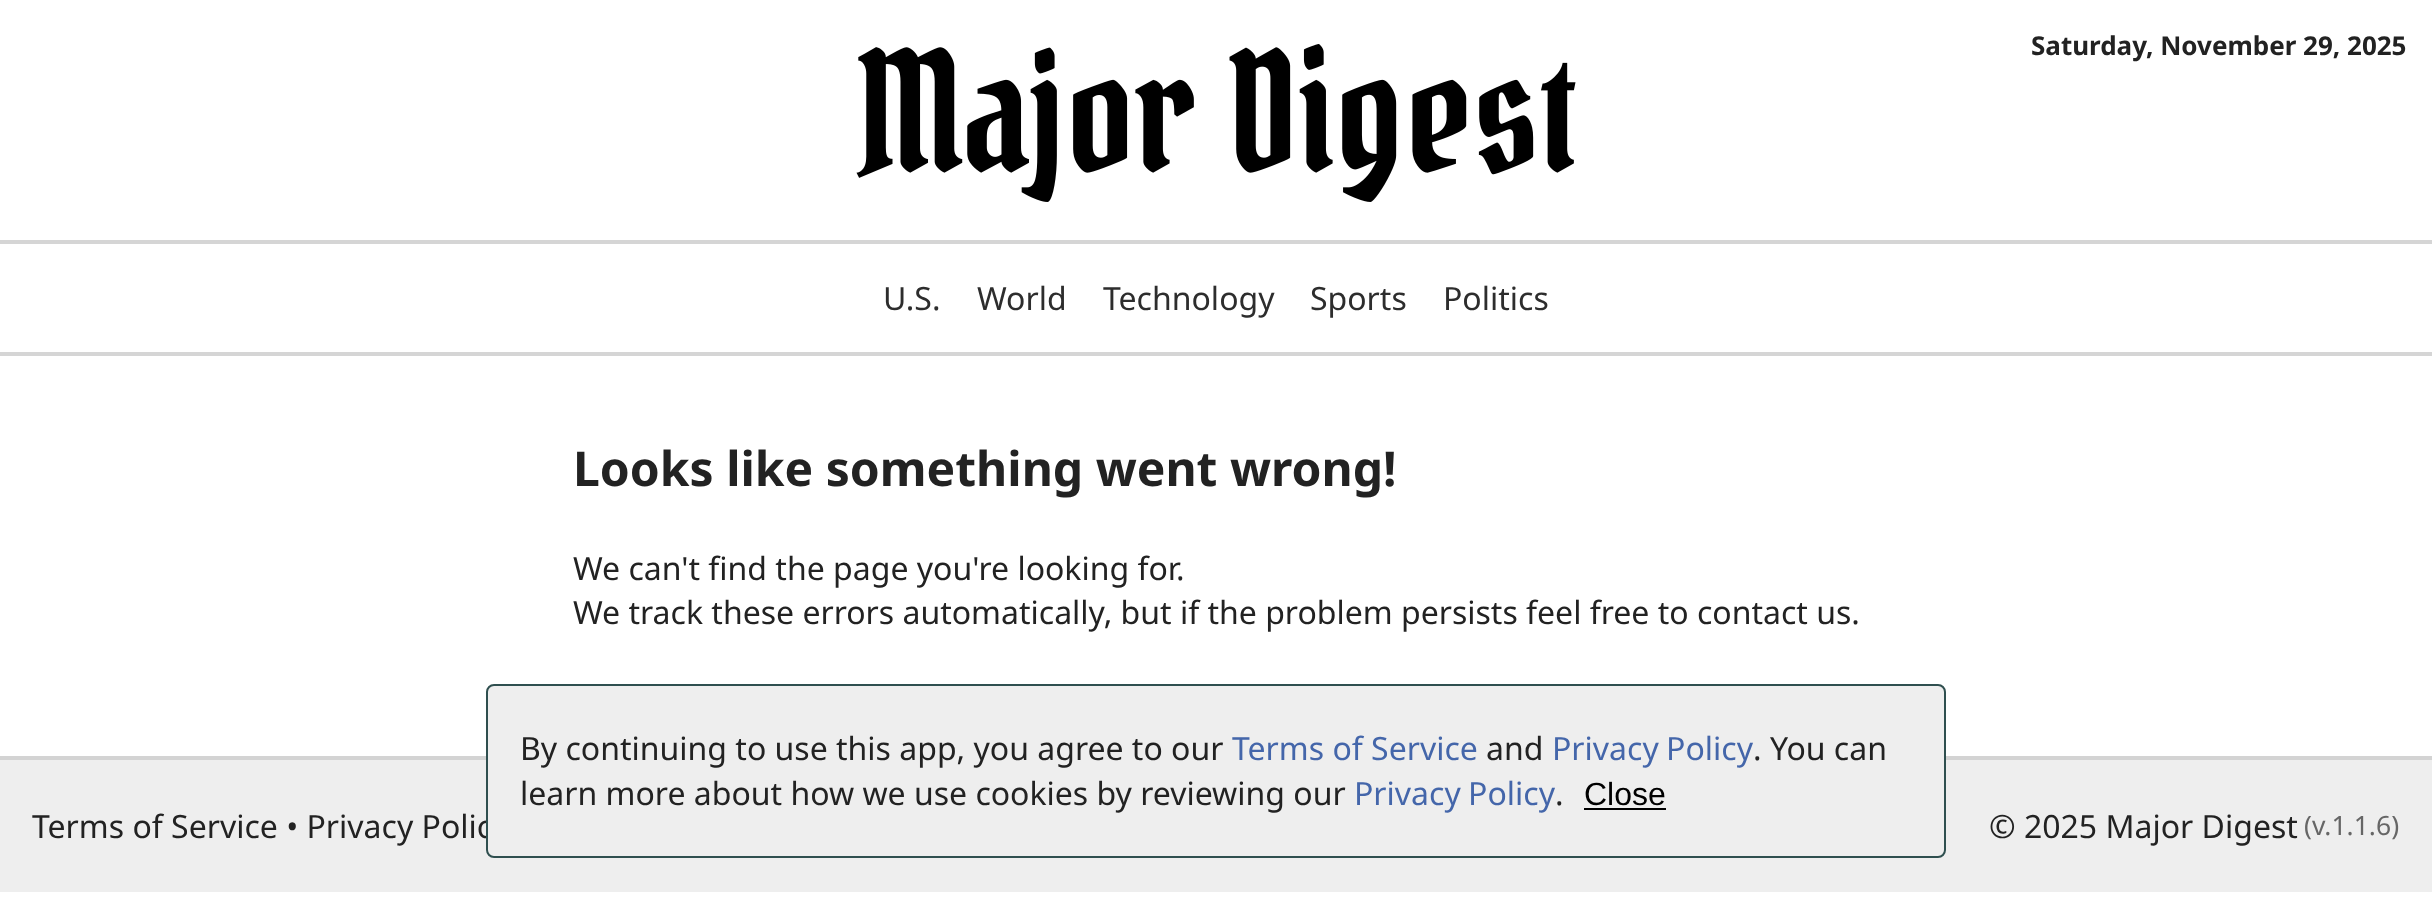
<!DOCTYPE html>
<meta charset="utf-8">
<style>body { margin: 0 } canvas { display: block }</style>
<canvas id="canvas" width="2432" height="921"></canvas>
<script type="module">
  const canvas = document.getElementById("canvas");
  const g = canvas.getContext("2d");
  g.miterLimit = 4;
  g.fontKerning = "normal";
  function drawText(s, x, y, [font, color]) {
    g.font = font;
    g.fillStyle = color;
    g.fillText(s, x, y);
  }
  function fillBox(x, y, w, h, color) {
    g.fillStyle = color;
    g.fillRect(x, y, w, h);
  }
  async function drawPicture(src, x, y, w, h) {
    const img = new Image();
    img.src = src;
    await img.decode();
    g.drawImage(img, x, y, w, h);
  }

  const s1 = ["bold 26px Noto Sans", "#222222"];
  const s2 = ["32px Noto Sans", "#2D2D2D"];
  const s3 = ["bold 48px Noto Sans", "#222222"];
  const s4 = ["32px Noto Sans", "#222222"];
  const s5 = ["32px Noto Sans", "#4466AA"];
  const s6 = ["32px Liberation Sans", "#000000"];
  const s7 = ["26.5px Noto Sans", "#666666"];

  fillBox(0, 0, 2432, 921, "#FFFFFF");
  await drawPicture("pic1.png", 856, 44, 720, 158);
  drawText("Saturday, November 29, 2025", 2031, 55, s1);
  fillBox(0, 240, 2432, 4, "#D5D5D5");
  fillBox(0, 352, 2432, 4, "#D5D5D5");
  drawText("U.S.", 883, 310, s2);
  drawText("World", 977, 310, s2);
  drawText("Technology", 1103, 310, s2);
  drawText("Sports", 1310, 310, s2);
  drawText("Politics", 1443, 310, s2);
  drawText("Looks like something went wrong!", 573, 486, s3);
  drawText("We can't find the page you're looking for.", 573, 580, s4);
  drawText("We track these errors automatically, but if the problem persists feel free to contact us.", 573, 624, s4);
  fillBox(0, 760, 2432, 132, "#EEEEEE");
  fillBox(0, 756, 2432, 4, "#D3D3D3");
  drawText("Terms of Service • Privacy Polic", 32, 838, s4);
  g.fillStyle = "#EEEEEE";
  g.beginPath();
  g.roundRect(487, 685, 1458, 172, 7);
  g.fill();
  g.strokeStyle = "#2F4F4F";
  g.lineWidth = 2;
  g.stroke();
  drawText("By continuing to use this app, you agree to our", 520, 760, s4);
  drawText("Terms of Service", 1232, 760, s5);
  drawText("and", 1486, 760, s4);
  g.wordSpacing = "-1px";
  drawText("Privacy Policy", 1552, 760, s5);
  g.wordSpacing = "0px";
  drawText(". You can", 1753, 760, s4);
  drawText("learn more about how we use cookies by reviewing our", 520, 805, s4);
  g.wordSpacing = "-1px";
  drawText("Privacy Policy", 1354, 805, s5);
  g.wordSpacing = "0px";
  drawText(".", 1555, 805, s4);
  drawText("Close", 1584, 805, s6);
  fillBox(1584, 808, 82, 2, "#000000");
  drawText("© 2025 Major Digest", 1989, 838, s4);
  drawText("(v.1.1.6)", 2304, 835, s7);
</script>
